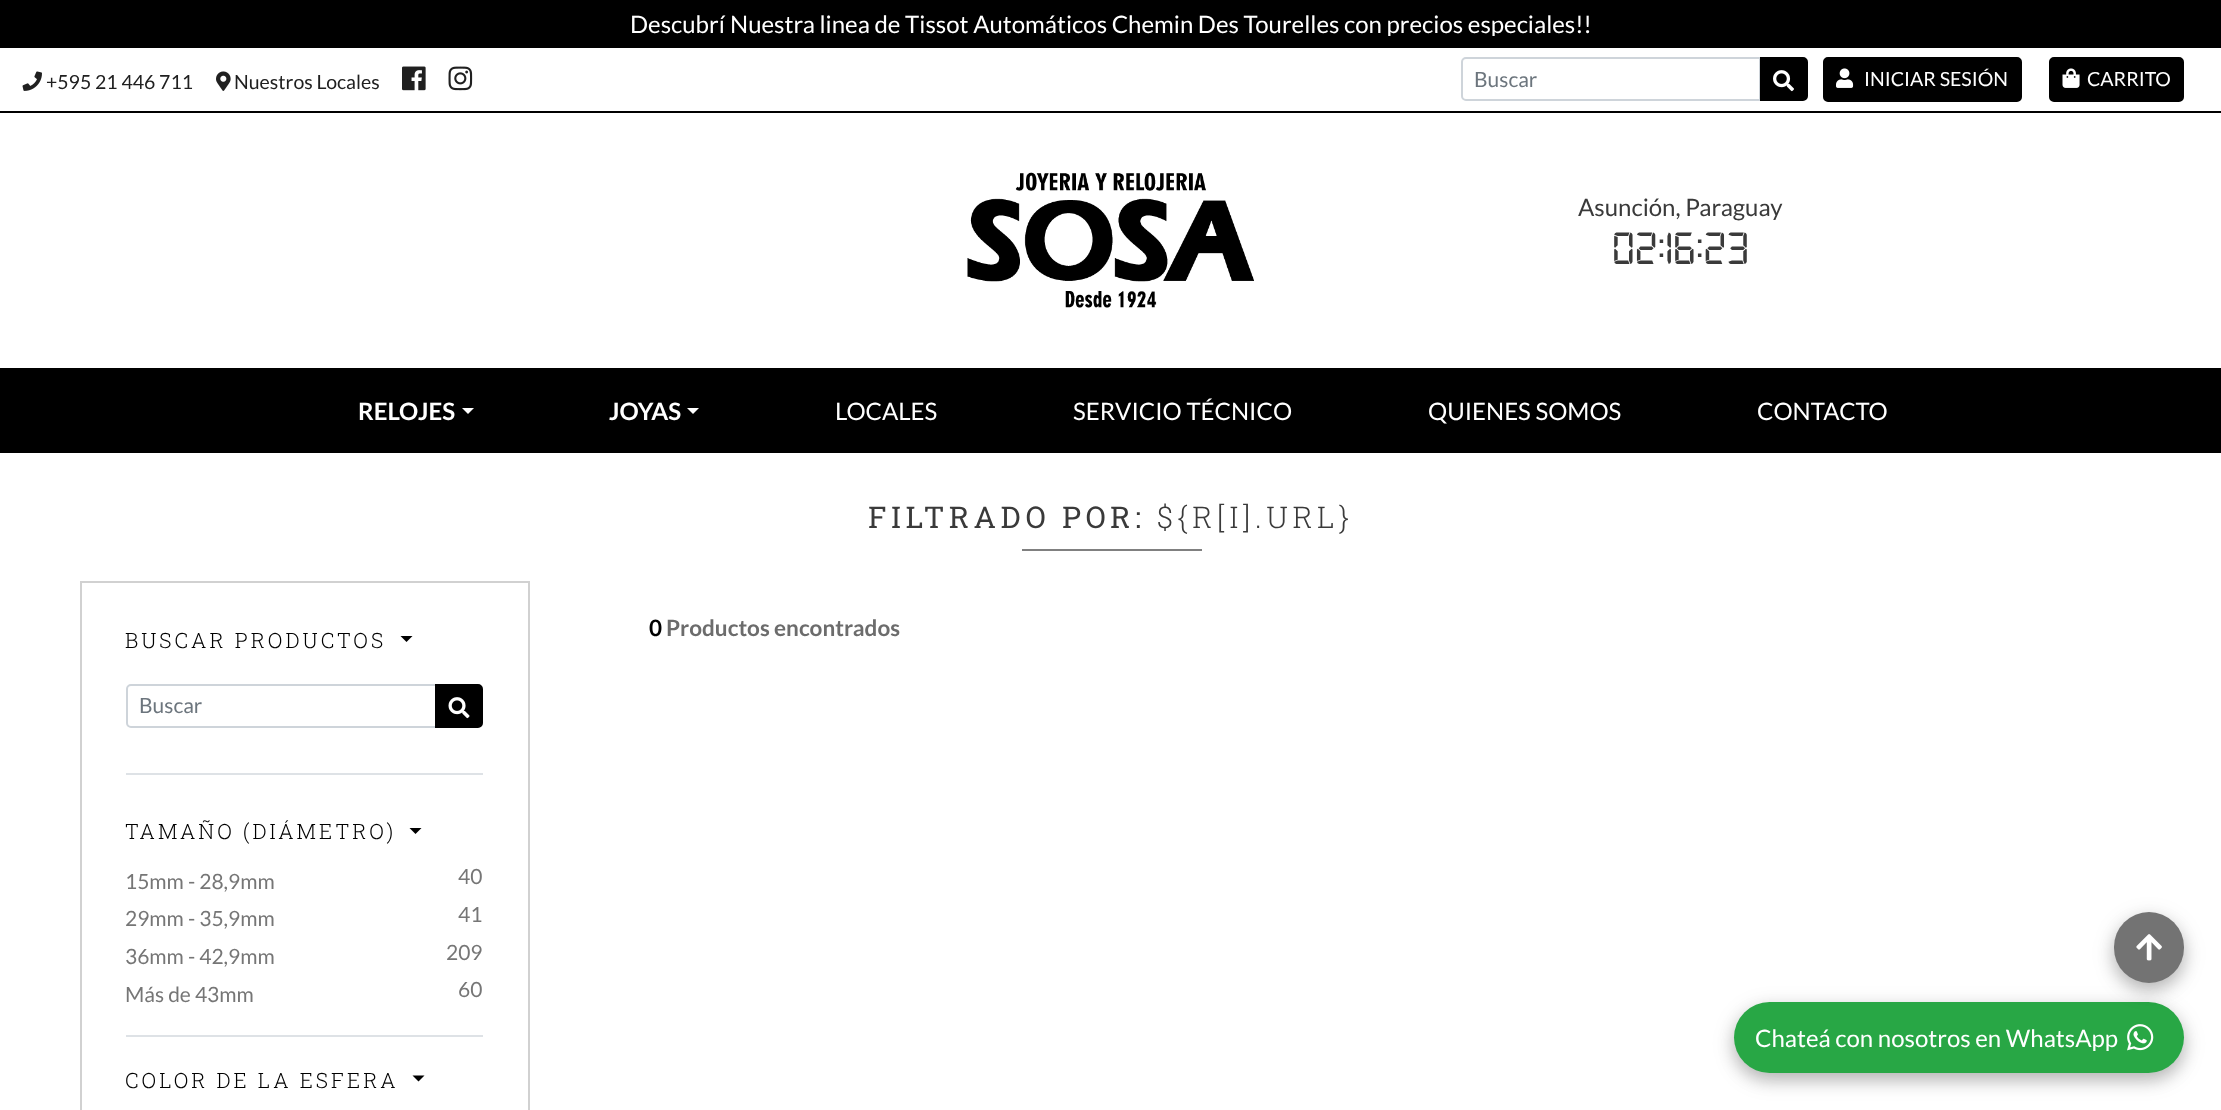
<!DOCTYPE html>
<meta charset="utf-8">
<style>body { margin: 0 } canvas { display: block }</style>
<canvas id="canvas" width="2221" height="1110"></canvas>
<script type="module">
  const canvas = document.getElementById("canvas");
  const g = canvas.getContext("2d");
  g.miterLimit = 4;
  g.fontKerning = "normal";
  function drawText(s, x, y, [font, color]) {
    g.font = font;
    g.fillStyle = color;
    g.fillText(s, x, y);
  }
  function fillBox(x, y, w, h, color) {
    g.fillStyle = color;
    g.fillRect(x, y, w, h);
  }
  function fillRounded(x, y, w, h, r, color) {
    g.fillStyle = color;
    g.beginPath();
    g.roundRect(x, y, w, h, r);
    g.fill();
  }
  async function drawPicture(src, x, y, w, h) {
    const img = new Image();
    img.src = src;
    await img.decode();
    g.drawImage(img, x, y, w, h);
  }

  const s1 = ["24px Lato", "#FFFFFF"];
  const s2 = ["19.5px Lato", "#202020"];
  const s3 = ["21px Lato", "#6C757D"];
  const s4 = ["19.5px Lato", "#FFFFFF"];
  const s5 = ["24px Lato", "#3A3A3A"];
  const s6 = ["48px 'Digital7'", "#3A3A3A"];
  const s7 = ["bold 24px Lato", "#FFFFFF"];
  const s8 = ["30px Roboto Slab", "#3A3A3A"];
  const s9 = ["300 30px Roboto Slab", "#3A3A3A"];
  const s10 = ["bold 22.5px Lato", "#000000"];
  const s11 = ["bold 22.5px Lato", "#6C6C6C"];
  const s12 = ["300 21px Roboto Slab", "#000000"];
  const s13 = ["21px Lato", "#767676"];

  fillBox(0, 0, 2221, 1110, "#FFFFFF");
  fillBox(0, 0, 2221, 48, "#000000");
  drawText("Descubrí", 630, 33, s1);
  g.save();
  g.beginPath();
  g.rect(0, 12, 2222, 24);
  g.clip();
  drawText("Nuestra linea de Tissot Automáticos Chemin Des Tourelles con precios especiales!!", 730, 33, s1);
  g.restore();
  fillBox(0, 111, 2221, 2, "#000000");
  await drawPicture("pic1.png", 22, 71, 20, 20);
  drawText("+595 21 446 711", 46, 89, s2);
  await drawPicture("pic2.png", 216, 71, 15, 20);
  drawText("Nuestros Locales", 234, 89, s2);
  await drawPicture("pic3.png", 402, 66, 24, 25);
  await drawPicture("pic4.png", 448, 66, 25, 25);
  g.beginPath();
  g.roundRect(1462, 58, 298, 42, [4, 0, 0, 4]);
  g.strokeStyle = "#CED4DA";
  g.lineWidth = 2;
  g.stroke();
  drawText("Buscar", 1474, 87, s3);
  g.fillStyle = "#000000";
  g.beginPath();
  g.roundRect(1761, 58, 46, 42, [0, 4, 4, 0]);
  g.fill();
  g.strokeStyle = "#000000";
  g.stroke();
  await drawPicture("pic5.png", 1773, 70, 21, 22);
  g.beginPath();
  g.roundRect(1824, 58, 197, 43, 4);
  g.fill();
  g.stroke();
  await drawPicture("pic6.png", 1836, 68, 18, 20);
  drawText("INICIAR SESIÓN", 1864, 86, s4);
  g.fillStyle = "#000000";
  g.beginPath();
  g.roundRect(2050, 58, 133, 43, 4);
  g.fill();
  g.stroke();
  await drawPicture("pic7.png", 2062, 68, 18, 20);
  drawText("CARRITO", 2087, 86, s4);
  await drawPicture("pic8.png", 967, 172, 287, 136);
  drawText("Asunción, Paraguay", 1578, 216, s5);
  drawText("02:16:23", 1612, 264, s6);
  fillBox(0, 368, 2221, 85, "#000000");
  drawText("RELOJES", 358, 420, s7);
  g.beginPath();
  g.moveTo(462, 408);
  g.lineTo(474, 408);
  g.lineTo(468, 414);
  g.closePath();
  g.fill();
  drawText("JOYAS", 609, 420, s7);
  g.beginPath();
  g.moveTo(687, 408);
  g.lineTo(699, 408);
  g.lineTo(693, 414);
  g.closePath();
  g.fill();
  drawText("LOCALES", 835, 420, s1);
  drawText("SERVICIO TÉCNICO", 1073, 420, s1);
  drawText("QUIENES SOMOS", 1428, 420, s1);
  drawText("CONTACTO", 1757, 420, s1);
  g.letterSpacing = "4.5px";
  drawText("FILTRADO POR:", 868, 528, s8);
  drawText("${R[I].URL}", 1157, 528, s9);
  fillBox(1022, 549, 180, 2, "#808080");
  g.letterSpacing = "0px";
  drawText("0", 649, 636, s10);
  drawText("Productos encontrados", 666, 636, s11);
  g.strokeStyle = "#D1D1D1";
  g.strokeRect(81, 582, 448, 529);
  fillBox(126, 773, 357, 2, "#DEE2E6");
  g.letterSpacing = "3px";
  drawText("BUSCAR PRODUCTOS", 125, 648, s12);
  g.beginPath();
  g.moveTo(400.5, 636);
  g.lineTo(412.5, 636);
  g.lineTo(406.5, 642);
  g.closePath();
  g.fill();
  g.beginPath();
  g.roundRect(127, 685, 309, 42, [4, 0, 0, 4]);
  g.strokeStyle = "#CED4DA";
  g.stroke();
  g.letterSpacing = "0px";
  drawText("Buscar", 139, 713, s3);
  g.fillStyle = "#000000";
  g.beginPath();
  g.roundRect(436, 685, 46, 42, [0, 4, 4, 0]);
  g.fill();
  g.strokeStyle = "#000000";
  g.stroke();
  await drawPicture("pic9.png", 448, 697, 22, 22);
  g.letterSpacing = "3px";
  drawText("TAMAÑO (DIÁMETRO)", 125, 839, s12);
  g.beginPath();
  g.moveTo(409.5, 828);
  g.lineTo(421.5, 828);
  g.lineTo(415.5, 834);
  g.closePath();
  g.fill();
  fillBox(126, 1035, 357, 2, "#DEE2E6");
  g.letterSpacing = "0px";
  drawText("15mm - 28,9mm", 125, 889, s13);
  drawText("40", 458, 884, s13);
  drawText("29mm - 35,9mm", 125, 926, s13);
  drawText("41", 458, 922, s13);
  drawText("36mm - 42,9mm", 125, 964, s13);
  drawText("209", 446, 960, s13);
  drawText("Más de 43mm", 125, 1002, s13);
  drawText("60", 458, 997, s13);
  g.letterSpacing = "3px";
  drawText("COLOR DE LA ESFERA", 125, 1088, s12);
  g.beginPath();
  g.moveTo(412.5, 1075.5);
  g.lineTo(424.5, 1075.5);
  g.lineTo(418.5, 1081.5);
  g.closePath();
  g.fill();
  g.fillStyle = "rgba(0, 0, 0, 0.15)";
  g.filter = "blur(11px)";
  g.beginPath();
  g.roundRect(1734, 1008, 450, 71, 35.5);
  g.fill();
  g.filter = "none";
  g.fillStyle = "rgba(0, 0, 0, 0.18)";
  g.filter = "blur(8px)";
  g.beginPath();
  g.roundRect(1734, 1010, 450, 70, 35);
  g.fill();
  g.filter = "none";
  fillRounded(1734, 1002, 450, 71, 35.5, "#28A745");
  g.fillStyle = "rgba(0, 0, 0, 0.15)";
  g.filter = "blur(11px)";
  g.beginPath();
  g.roundRect(2114, 918, 70, 71, 35);
  g.fill();
  g.filter = "none";
  g.fillStyle = "rgba(0, 0, 0, 0.18)";
  g.filter = "blur(8px)";
  g.beginPath();
  g.roundRect(2114, 920, 70, 70, 35);
  g.fill();
  g.filter = "none";
  fillRounded(2114, 912, 70, 71, 35, "#737373");
  await drawPicture("pic10.png", 2136, 934, 26, 27);
  g.letterSpacing = "0px";
  drawText("Chateá con nosotros en WhatsApp", 1755, 1047, s1);
  await drawPicture("pic11.png", 2127, 1024, 27, 27);
</script>
